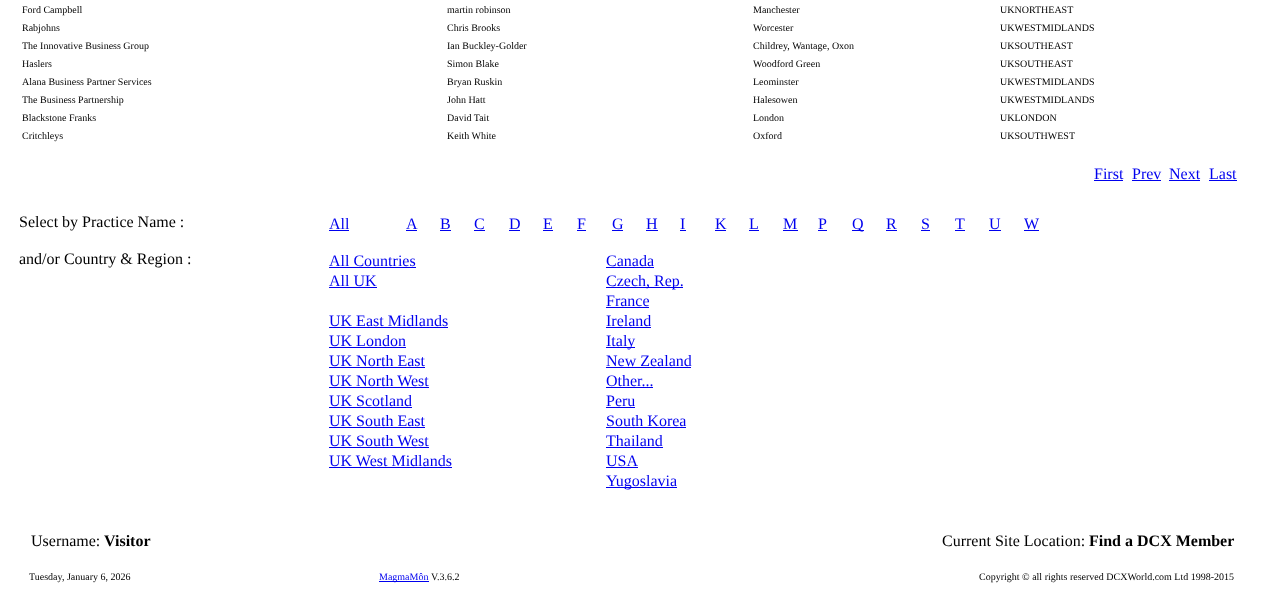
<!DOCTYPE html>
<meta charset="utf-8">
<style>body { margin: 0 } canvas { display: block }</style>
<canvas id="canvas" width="1261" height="595"></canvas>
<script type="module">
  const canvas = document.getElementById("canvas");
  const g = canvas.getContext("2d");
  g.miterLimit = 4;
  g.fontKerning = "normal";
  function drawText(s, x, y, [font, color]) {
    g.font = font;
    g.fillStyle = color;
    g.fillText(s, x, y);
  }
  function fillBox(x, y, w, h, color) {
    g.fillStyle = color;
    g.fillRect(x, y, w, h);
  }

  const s1 = ["10px Liberation Serif", "#000000"];
  const s2 = ["16px Liberation Serif", "#0000EE"];
  const s3 = ["16px Liberation Serif", "#000000"];
  const s4 = ["bold 16px Liberation Serif", "#000000"];
  const s5 = ["10px Liberation Serif", "#0000EE"];

  fillBox(0, 0, 1261, 595, "#FFFFFF");
  drawText("Ford Campbell", 22, 13, s1);
  drawText("martin robinson", 447, 13, s1);
  drawText("Manchester", 753, 13, s1);
  drawText("UKNORTHEAST", 1000, 13, s1);
  drawText("Rabjohns", 22, 31, s1);
  drawText("Chris Brooks", 447, 31, s1);
  drawText("Worcester", 753, 31, s1);
  drawText("UKWESTMIDLANDS", 1000, 31, s1);
  drawText("The Innovative Business Group", 22, 49, s1);
  drawText("Ian Buckley-Golder", 447, 49, s1);
  drawText("Childrey, Wantage, Oxon", 753, 49, s1);
  drawText("UKSOUTHEAST", 1000, 49, s1);
  drawText("Haslers", 22, 67, s1);
  drawText("Simon Blake", 447, 67, s1);
  drawText("Woodford Green", 753, 67, s1);
  drawText("UKSOUTHEAST", 1000, 67, s1);
  drawText("Alana Business Partner Services", 22, 85, s1);
  drawText("Bryan Ruskin", 447, 85, s1);
  drawText("Leominster", 753, 85, s1);
  drawText("UKWESTMIDLANDS", 1000, 85, s1);
  drawText("The Business Partnership", 22, 103, s1);
  drawText("John Hatt", 447, 103, s1);
  drawText("Halesowen", 753, 103, s1);
  drawText("UKWESTMIDLANDS", 1000, 103, s1);
  drawText("Blackstone Franks", 22, 121, s1);
  drawText("David Tait", 447, 121, s1);
  drawText("London", 753, 121, s1);
  drawText("UKLONDON", 1000, 121, s1);
  drawText("Critchleys", 22, 139, s1);
  drawText("Keith White", 447, 139, s1);
  drawText("Oxford", 753, 139, s1);
  drawText("UKSOUTHWEST", 1000, 139, s1);
  drawText("First", 1094, 179, s2);
  fillBox(1094, 180, 29, 1, "#0000EE");
  drawText("Prev", 1132, 179, s2);
  fillBox(1132, 180, 29, 1, "#0000EE");
  drawText("Next", 1169, 179, s2);
  fillBox(1169, 180, 31, 1, "#0000EE");
  drawText("Last", 1209, 179, s2);
  fillBox(1209, 180, 28, 1, "#0000EE");
  drawText("Select by Practice Name :", 19, 227, s3);
  drawText("All", 329, 229, s2);
  fillBox(329, 230, 20, 1, "#0000EE");
  drawText("A", 406, 229, s2);
  fillBox(406, 230, 11, 1, "#0000EE");
  drawText("B", 440, 229, s2);
  fillBox(440, 230, 11, 1, "#0000EE");
  drawText("C", 474, 229, s2);
  fillBox(474, 230, 11, 1, "#0000EE");
  drawText("D", 509, 229, s2);
  fillBox(509, 230, 11, 1, "#0000EE");
  drawText("E", 543, 229, s2);
  fillBox(543, 230, 10, 1, "#0000EE");
  drawText("F", 577, 229, s2);
  fillBox(577, 230, 9, 1, "#0000EE");
  drawText("G", 612, 229, s2);
  fillBox(612, 230, 11, 1, "#0000EE");
  drawText("H", 646, 229, s2);
  fillBox(646, 230, 12, 1, "#0000EE");
  drawText("I", 680, 229, s2);
  fillBox(680, 230, 6, 1, "#0000EE");
  drawText("K", 715, 229, s2);
  fillBox(715, 230, 11, 1, "#0000EE");
  drawText("L", 749, 229, s2);
  fillBox(749, 230, 10, 1, "#0000EE");
  drawText("M", 783, 229, s2);
  fillBox(783, 230, 15, 1, "#0000EE");
  drawText("P", 818, 229, s2);
  fillBox(818, 230, 9, 1, "#0000EE");
  fillBox(852, 230, 12, 1, "#0000EE");
  drawText("Q", 852, 229, s2);
  drawText("R", 886, 229, s2);
  fillBox(886, 230, 11, 1, "#0000EE");
  drawText("S", 921, 229, s2);
  fillBox(921, 230, 9, 1, "#0000EE");
  drawText("T", 955, 229, s2);
  fillBox(955, 230, 10, 1, "#0000EE");
  drawText("U", 989, 229, s2);
  fillBox(989, 230, 12, 1, "#0000EE");
  drawText("W", 1024, 229, s2);
  fillBox(1024, 230, 15, 1, "#0000EE");
  drawText("and/or Country & Region :", 19, 264, s3);
  drawText("All Countries", 329, 266, s2);
  fillBox(329, 267, 87, 1, "#0000EE");
  drawText("All UK", 329, 286, s2);
  fillBox(329, 287, 48, 1, "#0000EE");
  drawText("UK East Midlands", 329, 326, s2);
  fillBox(329, 327, 119, 1, "#0000EE");
  drawText("UK London", 329, 346, s2);
  fillBox(329, 347, 77, 1, "#0000EE");
  drawText("UK North East", 329, 366, s2);
  fillBox(329, 367, 96, 1, "#0000EE");
  drawText("UK North West", 329, 386, s2);
  fillBox(329, 387, 100, 1, "#0000EE");
  drawText("UK Scotland", 329, 406, s2);
  fillBox(329, 407, 83, 1, "#0000EE");
  drawText("UK South East", 329, 426, s2);
  fillBox(329, 427, 96, 1, "#0000EE");
  drawText("UK South West", 329, 446, s2);
  fillBox(329, 447, 100, 1, "#0000EE");
  drawText("UK West Midlands", 329, 466, s2);
  fillBox(329, 467, 123, 1, "#0000EE");
  drawText("Canada", 606, 266, s2);
  fillBox(606, 267, 48, 1, "#0000EE");
  fillBox(606, 287, 77, 1, "#0000EE");
  drawText("Czech, Rep.", 606, 286, s2);
  drawText("France", 606, 306, s2);
  fillBox(606, 307, 43, 1, "#0000EE");
  drawText("Ireland", 606, 326, s2);
  fillBox(606, 327, 45, 1, "#0000EE");
  fillBox(606, 347, 29, 1, "#0000EE");
  drawText("Italy", 606, 346, s2);
  drawText("New Zealand", 606, 366, s2);
  fillBox(606, 367, 85, 1, "#0000EE");
  drawText("Other...", 606, 386, s2);
  fillBox(606, 387, 47, 1, "#0000EE");
  drawText("Peru", 606, 406, s2);
  fillBox(606, 407, 29, 1, "#0000EE");
  drawText("South Korea", 606, 426, s2);
  fillBox(606, 427, 80, 1, "#0000EE");
  drawText("Thailand", 606, 446, s2);
  fillBox(606, 447, 57, 1, "#0000EE");
  drawText("USA", 606, 466, s2);
  fillBox(606, 467, 32, 1, "#0000EE");
  fillBox(606, 487, 71, 1, "#0000EE");
  drawText("Yugoslavia", 606, 486, s2);
  drawText("Username:", 31, 546, s3);
  drawText("Visitor", 104, 546, s4);
  drawText("Current Site Location:", 942, 546, s3);
  drawText("Find a DCX Member", 1089, 546, s4);
  drawText("Tuesday, January 6, 2026", 29, 580, s1);
  fillBox(379, 581, 50, 1, "#0000EE");
  drawText("MagmaMôn", 379, 580, s5);
  drawText("V.3.6.2", 431, 580, s1);
  drawText("Copyright © all rights reserved DCXWorld.com Ltd 1998-2015", 979, 580, s1);
</script>
